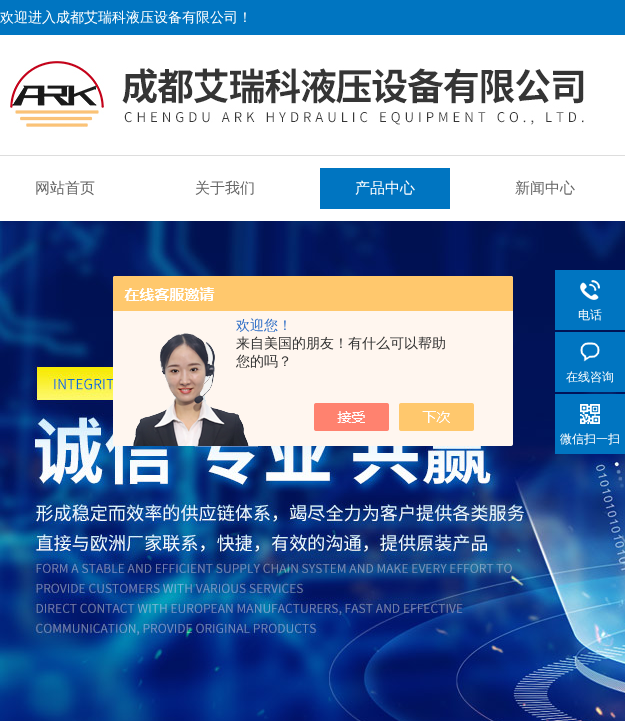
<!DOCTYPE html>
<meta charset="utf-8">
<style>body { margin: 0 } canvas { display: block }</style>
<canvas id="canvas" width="625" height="721"></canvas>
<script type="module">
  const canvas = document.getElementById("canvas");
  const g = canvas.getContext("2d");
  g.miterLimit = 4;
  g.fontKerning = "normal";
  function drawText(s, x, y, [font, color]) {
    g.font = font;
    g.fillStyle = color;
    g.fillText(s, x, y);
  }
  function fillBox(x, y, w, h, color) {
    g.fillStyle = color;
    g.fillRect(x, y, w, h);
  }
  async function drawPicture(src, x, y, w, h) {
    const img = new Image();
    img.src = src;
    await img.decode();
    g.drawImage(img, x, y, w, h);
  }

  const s1 = ["500 14px WenQuanYi Zen Hei", "#FFFFFF"];
  const s2 = ["500 15px WenQuanYi Zen Hei", "#666666"];
  const s3 = ["500 15px WenQuanYi Zen Hei", "#FFFFFF"];
  const s4 = ["500 14px WenQuanYi Zen Hei", "#2E6EC6"];
  const s5 = ["500 14px WenQuanYi Zen Hei", "#333333"];
  const s6 = ["500 12px WenQuanYi Zen Hei", "#FFFFFF"];

  fillBox(0, 0, 625, 721, "#FFFFFF");
  fillBox(0, 0, 625, 35, "#0075C1");
  drawText("欢迎进入成都艾瑞科液压设备有限公司！", 0, 22, s1);
  await drawPicture("pic1.png", 10, 61, 574, 66);
  fillBox(0, 155, 625, 1, "#DDDDDD");
  drawText("网站首页", 35, 193, s2);
  drawText("关于我们", 195, 193, s2);
  fillBox(320, 168, 130, 41, "#0075C1");
  drawText("产品中心", 355, 193, s3);
  drawText("新闻中心", 515, 193, s2);
  await drawPicture("pic2.png", 0, 221, 625, 500);
  await drawPicture("pic3.png", 113, 276, 400, 170);
  drawText("欢迎您！", 236, 330, s4);
  drawText("来自美国的朋友！有什么可以帮助", 236, 348, s5);
  drawText("您的吗？", 236, 366, s5);
  fillBox(555, 270, 70, 60, "#0075C1");
  await drawPicture("pic4.png", 580, 280, 20, 20);
  drawText("电话", 578, 319, s6);
  fillBox(555, 332, 70, 60, "#0075C1");
  await drawPicture("pic5.png", 580, 342, 20, 20);
  drawText("在线咨询", 566, 381, s6);
  fillBox(555, 394, 70, 60, "#0075C1");
  await drawPicture("pic6.png", 580, 404, 20, 20);
  drawText("微信扫一扫", 560, 443, s6);
</script>
